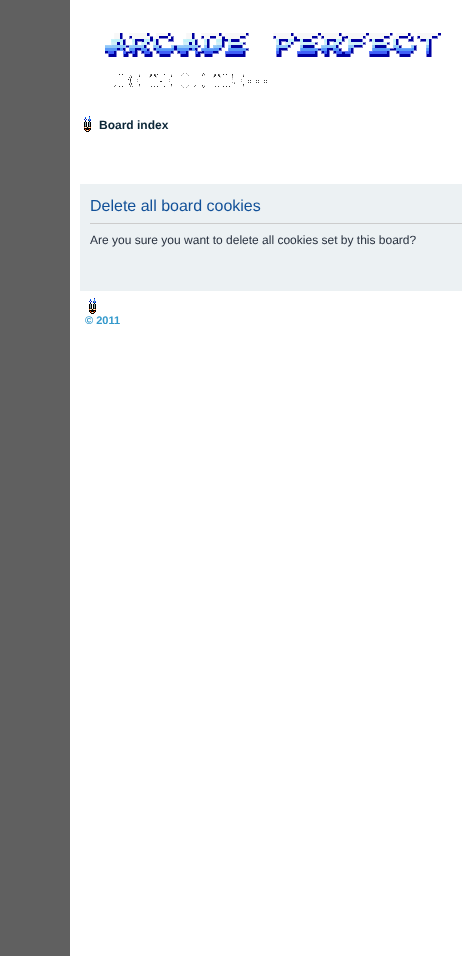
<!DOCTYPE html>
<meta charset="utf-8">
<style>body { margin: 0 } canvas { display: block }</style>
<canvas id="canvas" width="462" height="956"></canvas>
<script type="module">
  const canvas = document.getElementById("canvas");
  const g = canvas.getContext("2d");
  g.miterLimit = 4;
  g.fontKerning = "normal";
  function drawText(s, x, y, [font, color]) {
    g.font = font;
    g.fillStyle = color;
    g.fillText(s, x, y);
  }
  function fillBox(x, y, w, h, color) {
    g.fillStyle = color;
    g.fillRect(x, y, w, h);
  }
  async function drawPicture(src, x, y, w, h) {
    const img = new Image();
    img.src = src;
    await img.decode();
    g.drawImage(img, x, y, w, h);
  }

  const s1 = ["bold 12px Liberation Sans", "#0C2738"];
  const s2 = ["16px Liberation Sans", "#115098"];
  const s3 = ["12px Liberation Sans", "#28313F"];
  const s4 = ["bold 11px Liberation Sans", "#3399CC"];

  fillBox(0, 0, 462, 956, "#FFFFFF");
  fillBox(0, 0, 70, 956, "#606060");
  await drawPicture("pic1.png", 105, 33, 336, 55);
  await drawPicture("pic2.png", 84, 116, 7, 16);
  drawText("Board index", 99, 129, s1);
  fillBox(80, 184, 382, 107, "#ECF1F3");
  fillBox(90, 223, 372, 1, "#CCCCCC");
  drawText("Delete all board cookies", 90, 211, s2);
  drawText("Are you sure you want to delete all cookies set by this board?", 90, 244, s3);
  await drawPicture("pic2.png", 89, 298, 7, 16);
  drawText("© 2011", 85, 324, s4);
</script>
